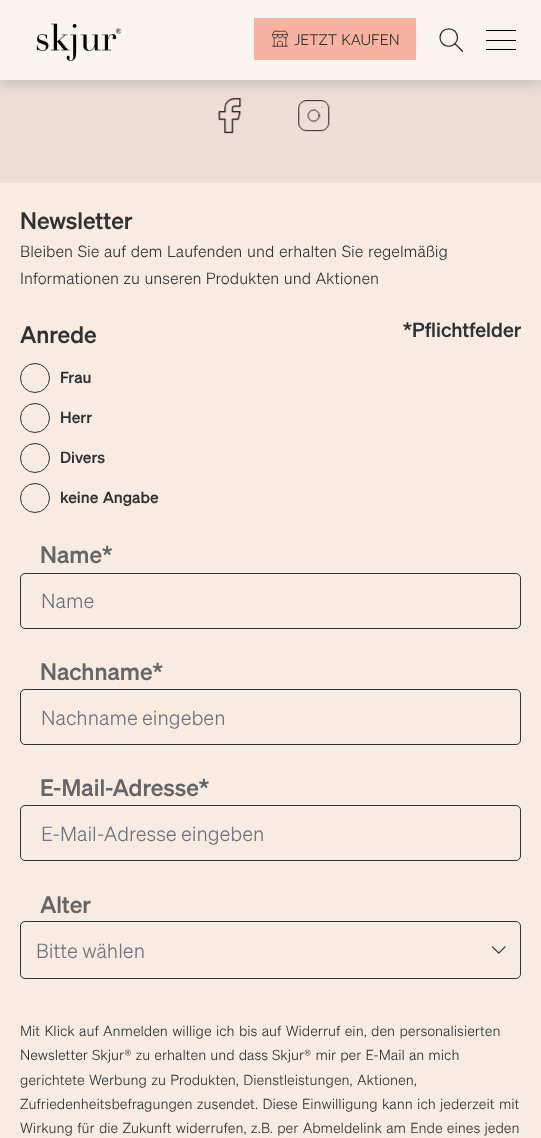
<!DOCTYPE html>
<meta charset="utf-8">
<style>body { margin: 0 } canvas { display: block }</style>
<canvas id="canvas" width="541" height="1138"></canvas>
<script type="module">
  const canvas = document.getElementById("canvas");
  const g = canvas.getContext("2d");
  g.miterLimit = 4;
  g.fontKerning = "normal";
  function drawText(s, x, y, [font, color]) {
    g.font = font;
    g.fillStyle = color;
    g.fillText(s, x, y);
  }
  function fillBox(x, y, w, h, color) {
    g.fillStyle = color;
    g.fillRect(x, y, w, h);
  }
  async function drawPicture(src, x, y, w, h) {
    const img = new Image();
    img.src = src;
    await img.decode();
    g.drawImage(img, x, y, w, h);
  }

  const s1 = ["300 15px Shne", "#313131"];
  const s2 = ["500 23.25px Shne", "#313131"];
  const s3 = ["300 15.85px Shne", "#313131"];
  const s4 = ["500 15.85px Shne", "#313131"];
  const s5 = ["500 20px Shne", "#313131"];
  const s6 = ["500 23.25px Shne", "#666565"];
  const s7 = ["300 20px Shne", "#71717A"];
  const s8 = ["300 14.15px Shne", "#313131"];

  fillBox(0, 0, 541, 1138, "#EDDFD5");
  await drawPicture("pic4.png", 218, 98, 24, 36);
  await drawPicture("pic5.png", 298, 100, 32, 32);
  g.fillStyle = "rgba(2, 23, 47, 0.17)";
  g.filter = "blur(7.5px)";
  g.beginPath();
  g.rect(0, 4, 541, 80);
  g.fill();
  g.filter = "none";
  fillBox(0, 0, 541, 80, "#FAF4EF");
  await drawPicture("pic1.png", 36, 23, 86, 39);
  fillBox(254, 18, 162, 42, "#F6B3A1");
  await drawPicture("pic2.png", 272, 30, 16, 17);
  g.wordSpacing = "1.25px";
  drawText("JETZT KAUFEN", 294, 45, s1);
  await drawPicture("pic3.png", 439, 28, 25, 24);
  fillBox(486, 30, 30, 1, "#000000");
  fillBox(486, 40, 30, 1, "#000000");
  fillBox(486, 49, 30, 1, "#000000");
  fillBox(0, 183, 541, 955, "#F7EBE2");
  g.wordSpacing = "0px";
  drawText("Newsletter", 20, 229, s2);
  g.wordSpacing = "1.25px";
  drawText("Bleiben Sie auf dem Laufenden und erhalten Sie regelmäßig", 20, 257, s3);
  g.wordSpacing = "1px";
  drawText("Informationen zu unseren Produkten und Aktionen", 20, 284, s3);
  g.wordSpacing = "0px";
  drawText("Anrede", 20, 343, s2);
  g.beginPath();
  g.arc(35, 378, 14.5, 0, Math.PI * 2);
  g.strokeStyle = "#313131";
  g.stroke();
  drawText("Frau", 60, 383, s4);
  g.beginPath();
  g.arc(35, 418, 14.5, 0, Math.PI * 2);
  g.stroke();
  drawText("Herr", 60, 423, s4);
  g.beginPath();
  g.arc(35, 458, 14.5, 0, Math.PI * 2);
  g.stroke();
  drawText("Divers", 60, 463, s4);
  g.beginPath();
  g.arc(35, 498, 14.5, 0, Math.PI * 2);
  g.stroke();
  g.wordSpacing = "1.25px";
  drawText("keine Angabe", 60, 503, s4);
  g.wordSpacing = "0px";
  drawText("*Pflichtfelder", 403, 337, s5);
  drawText("Name*", 40, 563, s6);
  g.beginPath();
  g.roundRect(20.5, 573.5, 500, 55, 4.5);
  g.strokeStyle = "#333333";
  g.stroke();
  drawText("Name", 41, 608, s7);
  drawText("Nachname*", 40, 680, s6);
  g.beginPath();
  g.roundRect(20.5, 689.5, 500, 55, 4.5);
  g.stroke();
  drawText("Nachname eingeben", 41, 725, s7);
  drawText("E-Mail-Adresse*", 40, 796, s6);
  g.beginPath();
  g.roundRect(20.5, 805.5, 500, 55, 4.5);
  g.stroke();
  drawText("E-Mail-Adresse eingeben", 41, 841, s7);
  drawText("Alter", 40, 913, s6);
  g.beginPath();
  g.roundRect(20.5, 921.5, 500, 57, 4.5);
  g.stroke();
  drawText("Bitte wählen", 36, 958, s7);
  await drawPicture("pic6.png", 492, 946, 14, 8);
  g.wordSpacing = "1.25px";
  drawText("Mit Klick auf Anmelden willige ich bis auf Widerruf ein, den personalisierten", 20, 1036, s8);
  g.wordSpacing = "1px";
  drawText("Newsletter Skjur® zu erhalten und dass Skjur® mir per E-Mail an mich", 20, 1060, s8);
  g.wordSpacing = "1.25px";
  drawText("gerichtete Werbung zu Produkten, Dienstleistungen, Aktionen,", 20, 1085, s8);
  drawText("Zufriedenheitsbefragungen zusendet. Diese Einwilligung kann ich jederzeit mit", 20, 1109, s8);
  drawText("Wirkung für die Zukunft widerrufen, z.B. per Abmeldelink am Ende eines jeden", 20, 1133, s8);
</script>
